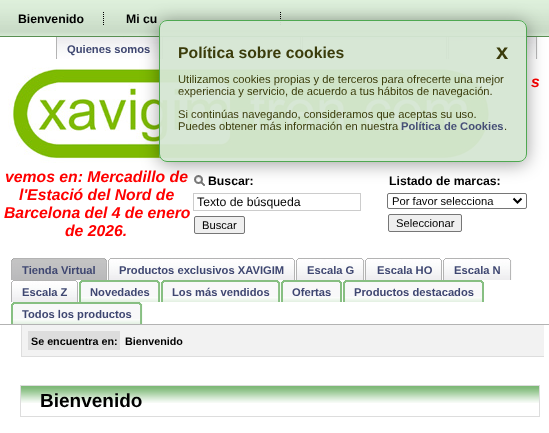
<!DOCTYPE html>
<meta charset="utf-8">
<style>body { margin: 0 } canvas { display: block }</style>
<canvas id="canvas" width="549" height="433"></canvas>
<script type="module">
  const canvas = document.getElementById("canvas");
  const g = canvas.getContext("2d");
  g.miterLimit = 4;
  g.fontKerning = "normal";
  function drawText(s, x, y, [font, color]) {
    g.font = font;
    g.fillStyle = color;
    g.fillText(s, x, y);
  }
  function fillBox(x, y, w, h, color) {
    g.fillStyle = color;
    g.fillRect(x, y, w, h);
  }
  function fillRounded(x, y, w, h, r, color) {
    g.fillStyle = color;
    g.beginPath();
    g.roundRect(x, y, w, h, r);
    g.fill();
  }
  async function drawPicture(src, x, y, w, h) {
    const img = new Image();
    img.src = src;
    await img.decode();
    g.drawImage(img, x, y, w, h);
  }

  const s1 = ["bold 12.25px Liberation Sans", "#000000"];
  const s2 = ["bold 11.2px Liberation Sans", "#3F4771"];
  const s3 = ["italic bold 15.75px Liberation Sans", "#FF0000"];
  const s4 = ["12.25px Liberation Sans", "#000000"];
  const s5 = ["11.2px Liberation Sans", "#000000"];
  const s6 = ["bold 15.75px Liberation Sans", "#3B3C0B"];
  const s7 = ["bold 22px Liberation Sans", "#3B3C0B"];
  const s8 = ["11.2px Liberation Sans", "#3B3C0B"];
  const s9 = ["bold 11.2px Liberation Sans", "#464F76"];
  const s10 = ["bold 10.75px Liberation Sans", "#000000"];
  const s11 = ["bold 19px Liberation Sans", "#000000"];

  fillBox(0, 0, 549, 433, "#FFFFFF");
  await drawPicture("pic1.png", 0, 0, 549, 37);
  drawText("Bienvenido", 18, 23, s1);
  g.beginPath();
  g.moveTo(103.5, 12);
  g.lineTo(103.5, 26);
  g.strokeStyle = "#000000";
  g.setLineDash([1, 1]);
  g.stroke();
  drawText("Mi cu", 126, 23, s1);
  g.beginPath();
  g.moveTo(280.5, 12);
  g.lineTo(280.5, 26);
  g.stroke();
  await drawPicture("pic2.png", 56, 37, 15, 22);
  await drawPicture("pic3.png", 71, 37, 90, 22);
  drawText("Quienes somos", 67, 53, s2);
  await drawPicture("pic2.png", 162, 37, 15, 22);
  await drawPicture("pic4.png", 177, 37, 125, 22);
  await drawPicture("pic2.png", 302, 37, 15, 22);
  await drawPicture("pic5.png", 317, 37, 130, 22);
  await drawPicture("pic2.png", 448, 37, 15, 22);
  await drawPicture("pic6.png", 463, 37, 75, 22);
  drawText("s", 531, 87, s3);
  drawText("vemos en: Mercadillo de", 5, 182, s3);
  drawText("l'Estació del Nord de", 19, 200, s3);
  drawText("Barcelona del 4 de enero", 4, 218, s3);
  drawText("de 2026.", 65, 236, s3);
  await drawPicture("pic7.png", 8, 67, 488, 96);
  await drawPicture("pic8.png", 194, 175, 11, 11);
  drawText("Buscar:", 208, 185, s1);
  g.strokeStyle = "#CCCCCC";
  g.setLineDash([]);
  g.strokeRect(193.5, 193.5, 167, 17);
  drawText("Texto de búsqueda", 197, 206, s4);
  g.fillStyle = "#EFEFEF";
  g.beginPath();
  g.roundRect(194.5, 216.5, 50, 17, 1.5);
  g.fill();
  g.strokeStyle = "#767676";
  g.stroke();
  drawText("Buscar", 202, 229, s5);
  drawText("Listado de marcas:", 389, 185, s1);
  g.beginPath();
  g.roundRect(387.5, 193.5, 139, 15, 1.5);
  g.stroke();
  g.beginPath();
  g.moveTo(513.5, 198.5);
  g.lineTo(517.5, 202.5);
  g.lineTo(521.5, 198.5);
  g.strokeStyle = "#000000";
  g.lineWidth = 2;
  g.stroke();
  drawText("Por favor selecciona", 392, 205, s5);
  g.fillStyle = "#EFEFEF";
  g.beginPath();
  g.roundRect(388.5, 214.5, 73, 17, 1.5);
  g.fill();
  g.strokeStyle = "#767676";
  g.lineWidth = 1;
  g.stroke();
  drawText("Seleccionar", 396, 227, s5);
  fillBox(0, 324, 549, 1, "#B3B3B3");
  await drawPicture("pic9.png", 11, 258, 8, 22);
  await drawPicture("pic10.png", 19, 258, 88, 22);
  drawText("Tienda Virtual", 22, 274, s2);
  await drawPicture("pic11.png", 108, 258, 15, 22);
  await drawPicture("pic12.png", 123, 258, 172, 22);
  drawText("Productos exclusivos XAVIGIM", 119, 274, s2);
  await drawPicture("pic11.png", 296, 258, 15, 22);
  await drawPicture("pic13.png", 311, 258, 54, 22);
  drawText("Escala G", 307, 274, s2);
  await drawPicture("pic11.png", 365, 258, 15, 22);
  await drawPicture("pic14.png", 380, 258, 62, 22);
  drawText("Escala HO", 377, 274, s2);
  await drawPicture("pic11.png", 443, 258, 15, 22);
  await drawPicture("pic15.png", 458, 258, 54, 22);
  drawText("Escala N", 454, 274, s2);
  await drawPicture("pic11.png", 11, 280, 15, 22);
  await drawPicture("pic16.png", 26, 280, 52, 22);
  drawText("Escala Z", 22, 296, s2);
  await drawPicture("pic17.png", 79, 280, 15, 22);
  await drawPicture("pic18.png", 94, 280, 67, 22);
  drawText("Novedades", 90, 296, s2);
  await drawPicture("pic17.png", 161, 280, 15, 22);
  await drawPicture("pic19.png", 176, 280, 105, 22);
  drawText("Los más vendidos", 172, 296, s2);
  await drawPicture("pic17.png", 281, 280, 15, 22);
  await drawPicture("pic20.png", 296, 280, 46, 22);
  drawText("Ofertas", 292, 296, s2);
  await drawPicture("pic17.png", 343, 280, 15, 22);
  await drawPicture("pic21.png", 358, 280, 126, 22);
  drawText("Productos destacados", 354, 296, s2);
  await drawPicture("pic17.png", 11, 302, 15, 22);
  await drawPicture("pic22.png", 26, 302, 117, 22);
  drawText("Todos los productos", 22, 318, s2);
  g.save();
  g.beginPath();
  g.moveTo(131, 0);
  g.lineTo(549, 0);
  g.lineTo(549, 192);
  g.lineTo(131, 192);
  g.closePath();
  g.moveTo(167, 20);
  g.lineTo(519, 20);
  g.bezierCurveTo(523.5, 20, 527, 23.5, 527, 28);
  g.lineTo(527, 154);
  g.bezierCurveTo(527, 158.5, 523.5, 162, 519, 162);
  g.lineTo(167, 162);
  g.bezierCurveTo(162.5, 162, 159, 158.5, 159, 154);
  g.lineTo(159, 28);
  g.bezierCurveTo(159, 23.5, 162.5, 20, 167, 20);
  g.closePath();
  g.clip("evenodd");
  g.fillStyle = "rgba(0, 0, 0, 0.38)";
  g.filter = "blur(9px)";
  g.beginPath();
  g.roundRect(159, 22, 368, 142, 8);
  g.fill();
  g.filter = "none";
  g.restore();
  fillRounded(159, 20, 368, 142, 8, "rgba(213, 230, 211, 0.95)");
  g.beginPath();
  g.roundRect(159.5, 20.5, 367, 141, 7.5);
  g.strokeStyle = "rgba(72, 164, 74, 0.95)";
  g.stroke();
  drawText("Política sobre cookies", 178, 58, s6);
  drawText("x", 496, 59, s7);
  drawText("Utilizamos cookies propias y de terceros para ofrecerte una mejor", 178, 83, s8);
  drawText("experiencia y servicio, de acuerdo a tus hábitos de navegación.", 178, 95, s8);
  drawText("Si continúas navegando, consideramos que aceptas su uso.", 178, 118, s8);
  drawText("Puedes obtener más información en nuestra", 178, 130, s8);
  drawText("Política de Cookies", 401, 130, s9);
  drawText(".", 504, 130, s8);
  fillBox(22, 325, 522, 31, "#F2F2F2");
  fillBox(21, 356, 523, 1, "#DDDDDD");
  fillBox(21, 325, 1, 32, "#DDDDDD");
  fillBox(28, 331, 92, 19, "#DDDDDD");
  drawText("Se encuentra en:", 31, 345, s10);
  drawText("Bienvenido", 125, 345, s10);
  await drawPicture("pic23.png", 21, 386, 518, 17);
  g.strokeStyle = "#DDDDDD";
  g.strokeRect(20.5, 385.5, 519, 31);
  drawText("Bienvenido", 40, 407, s11);
</script>
